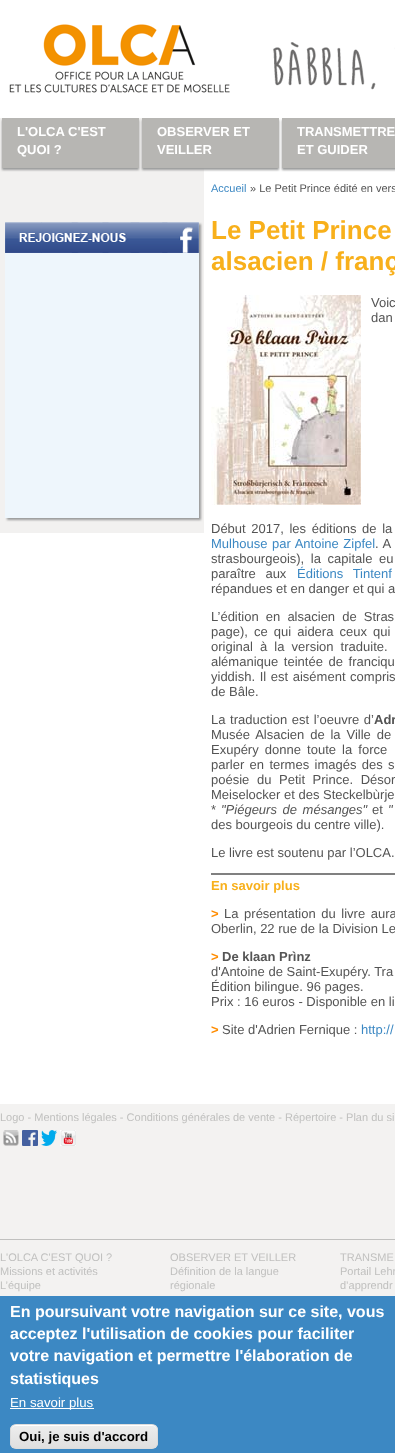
<!DOCTYPE html>
<meta charset="utf-8">
<style>body { margin: 0 } canvas { display: block }</style>
<canvas id="canvas" width="395" height="1453"></canvas>
<script type="module">
  const canvas = document.getElementById("canvas");
  const g = canvas.getContext("2d");
  g.miterLimit = 4;
  g.fontKerning = "normal";
  function drawText(s, x, y, [font, color]) {
    g.font = font;
    g.fillStyle = color;
    g.fillText(s, x, y);
  }
  function fillBox(x, y, w, h, color) {
    g.fillStyle = color;
    g.fillRect(x, y, w, h);
  }
  async function drawPicture(src, x, y, w, h) {
    const img = new Image();
    img.src = src;
    await img.decode();
    g.drawImage(img, x, y, w, h);
  }
  let gradient;

  const s1 = ["bold 13px Liberation Sans", "#FFFFFF"];
  const s2 = ["11px Liberation Sans", "#3C88C3"];
  const s3 = ["11px Liberation Sans", "#545454"];
  const s4 = ["bold 26px Liberation Sans", "#F8B01B"];
  const s5 = ["13px Liberation Sans", "#545454"];
  const s6 = ["13px Liberation Sans", "#3C88C3"];
  const s7 = ["bold 13px Liberation Sans", "#545454"];
  const s8 = ["italic 13px Liberation Sans", "#545454"];
  const s9 = ["bold 13px Liberation Sans", "#F8B01B"];
  const s10 = ["bold 13px Liberation Sans", "#FF8C00"];
  const s11 = ["11px Liberation Sans", "#C0C0BF"];
  const s12 = ["bold 16px Liberation Sans", "#FFFFFF"];
  const s13 = ["13.25px Liberation Sans", "#FFFFFF"];
  const s14 = ["bold 13.25px Liberation Sans", "#000000"];

  fillBox(0, 0, 395, 1453, "#FFFFFF");
  await drawPicture("pic1.png", 273, 42, 122, 48);
  await drawPicture("pic2.png", 9, 24, 221, 69);
  fillBox(0, 118, 204, 415, "#F2F1F0");
  g.fillStyle = "#999A9A";
  g.filter = "blur(1px)";
  g.beginPath();
  g.rect(2, 120, 137, 50);
  g.fill();
  g.filter = "none";
  fillBox(2, 118, 137, 50, "#B7B6B3");
  drawText("L'OLCA C'EST", 17, 136, s1);
  drawText("QUOI ?", 17, 154, s1);
  g.fillStyle = "#999A9A";
  g.filter = "blur(1px)";
  g.beginPath();
  g.rect(142, 120, 137, 50);
  g.fill();
  g.filter = "none";
  fillBox(142, 118, 137, 50, "#B7B6B3");
  drawText("OBSERVER ET", 157, 136, s1);
  drawText("VEILLER", 157, 154, s1);
  g.fillStyle = "#999A9A";
  g.filter = "blur(1px)";
  g.beginPath();
  g.rect(282, 120, 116, 50);
  g.fill();
  g.filter = "none";
  fillBox(282, 118, 113, 50, "#B7B6B3");
  drawText("TRANSMETTRE", 297, 136, s1);
  drawText("ET GUIDER", 297, 154, s1);
  g.fillStyle = "#999A9A";
  g.filter = "blur(1px)";
  g.beginPath();
  g.rect(7, 224, 194, 296);
  g.fill();
  g.filter = "none";
  fillBox(5, 222, 194, 296, "#EEF6FC");
  await drawPicture("pic3.png", 5, 222, 194, 31);
  drawText("Accueil", 211, 192, s2);
  drawText("» Le Petit Prince édité en vers", 250, 192, s3);
  drawText("Le Petit Prince", 211, 239, s4);
  drawText("alsacien / franç", 211, 270, s4);
  await drawPicture("pic4.png", 211, 295, 150, 210);
  drawText("Voic", 371, 307, s5);
  drawText("dan", 371, 322, s5);
  g.wordSpacing = "2px";
  drawText("Début 2017, les éditions de la", 211, 533, s5);
  g.wordSpacing = "1px";
  drawText("Mulhouse par Antoine Zipfel", 211, 548, s6);
  drawText(". A", 375, 548, s5);
  g.wordSpacing = "3px";
  drawText("strasbourgeois), la capitale eu", 211, 563, s5);
  g.wordSpacing = "6px";
  drawText("paraître aux", 211, 578, s5);
  drawText("Éditions Tintenf", 297, 578, s6);
  g.wordSpacing = "0px";
  drawText("répandues et en danger et qui a", 211, 593, s5);
  g.wordSpacing = "3.5px";
  drawText("L’édition en alsacien de Stras", 211, 621, s5);
  g.wordSpacing = "2.5px";
  drawText("page), ce qui aidera ceux qui", 211, 636, s5);
  g.wordSpacing = "3.5px";
  drawText("original à la version traduite.", 211, 651, s5);
  g.wordSpacing = "2px";
  drawText("alémanique teintée de franciqu", 211, 666, s5);
  g.wordSpacing = "1px";
  drawText("yiddish. Il est aisément compris", 211, 681, s5);
  g.wordSpacing = "0px";
  drawText("de Bâle.", 211, 696, s5);
  g.wordSpacing = "1px";
  drawText("La traduction est l’oeuvre d’", 211, 724, s5);
  drawText("Adr", 374, 724, s7);
  g.wordSpacing = "2.25px";
  drawText("Musée Alsacien de la Ville de", 211, 739, s5);
  g.wordSpacing = "2.5px";
  drawText("Exupéry donne toute la force", 211, 754, s5);
  g.wordSpacing = "1.75px";
  drawText("parler en termes imagés des s", 211, 769, s5);
  g.wordSpacing = "4px";
  drawText("poésie du Petit Prince. Désor", 211, 784, s5);
  g.wordSpacing = "0px";
  drawText("Meiselocker et des Steckelbùrje", 211, 799, s5);
  drawText("*", 211, 814, s5);
  g.wordSpacing = "2px";
  drawText("\"Piégeurs de mésanges\"", 221, 814, s8);
  g.wordSpacing = "0px";
  drawText("et", 372, 814, s5);
  g.wordSpacing = "2px";
  drawText("\"", 388, 814, s8);
  g.wordSpacing = "0px";
  drawText("des bourgeois du centre ville).", 211, 829, s5);
  drawText("Le livre est soutenu par l’OLCA.", 211, 857, s5);
  fillBox(211, 873, 184, 2, "#808080");
  drawText("En savoir plus", 211, 890, s9);
  drawText(">", 211, 918, s10);
  g.wordSpacing = "2px";
  drawText("La présentation du livre aura", 224, 918, s5);
  g.wordSpacing = "0px";
  drawText("Oberlin, 22 rue de la Division Le", 211, 933, s5);
  drawText(">", 211, 961, s10);
  drawText("De klaan Prìnz", 222, 961, s7);
  drawText("d'Antoine de Saint-Exupéry. Tra", 211, 976, s5);
  drawText("Édition bilingue. 96 pages.", 211, 991, s5);
  drawText("Prix : 16 euros - Disponible en li", 211, 1006, s5);
  drawText(">", 211, 1034, s10);
  drawText("Site d'Adrien Fernique :", 222, 1034, s5);
  drawText("http://", 361, 1034, s6);
  fillBox(0, 1104, 395, 192, "#F3F2F1");
  drawText("Logo - Mentions légales - Conditions générales de vente - Répertoire - Plan du si", 0, 1121, s11);
  await drawPicture("pic5.png", 3, 1130, 16, 16);
  await drawPicture("pic6.png", 22, 1130, 16, 16);
  await drawPicture("pic7.png", 41, 1130, 16, 16);
  await drawPicture("pic8.png", 60, 1130, 16, 16);
  fillBox(0, 1239, 395, 1, "#C0C0BF");
  drawText("L'OLCA C'EST QUOI ?", 0, 1261, s11);
  drawText("Missions et activités", 0, 1275, s11);
  drawText("L’équipe", 0, 1289, s11);
  drawText("OBSERVER ET VEILLER", 170, 1261, s11);
  drawText("Définition de la langue", 170, 1275, s11);
  drawText("régionale", 170, 1289, s11);
  drawText("TRANSME", 340, 1261, s11);
  drawText("Portail Lehr", 340, 1275, s11);
  drawText("d’apprendr", 340, 1289, s11);
  fillBox(0, 1296, 395, 157, "#3C88C3");
  drawText("En poursuivant votre navigation sur ce site, vous", 10, 1317, s12);
  drawText("acceptez l'utilisation de cookies pour faciliter", 10, 1339, s12);
  drawText("votre navigation et permettre l'élaboration de", 10, 1361, s12);
  drawText("statistiques", 10, 1384, s12);
  fillBox(10, 1408, 84, 1, "#FFFFFF");
  drawText("En savoir plus", 10, 1407, s13);
  g.save();
  g.beginPath();
  g.roundRect(10, 1424, 148, 25, 6);
  g.clip();
  gradient = g.createLinearGradient(84, 1425, 84, 1448);
  gradient.addColorStop(0.05, "#EDEDED");
  gradient.addColorStop(1, "#DFDFDF");
  g.fillStyle = gradient;
  g.fillRect(10, 1425, 148, 23);
  g.restore();
  g.beginPath();
  g.moveTo(16, 1426);
  g.lineTo(152, 1426);
  g.bezierCurveTo(155, 1426, 157, 1428, 157, 1431);
  g.lineTo(157, 1430);
  g.bezierCurveTo(157, 1427, 155, 1425, 152, 1425);
  g.lineTo(16, 1425);
  g.bezierCurveTo(13, 1425, 11, 1427, 11, 1430);
  g.lineTo(11, 1431);
  g.bezierCurveTo(11, 1428, 13, 1426, 16, 1426);
  g.closePath();
  g.fill();
  g.beginPath();
  g.roundRect(10.5, 1424.5, 147, 24, 5.5);
  g.strokeStyle = "#DCDCDC";
  g.stroke();
  drawText("Oui, je suis d'accord", 19, 1441, s14);
</script>
